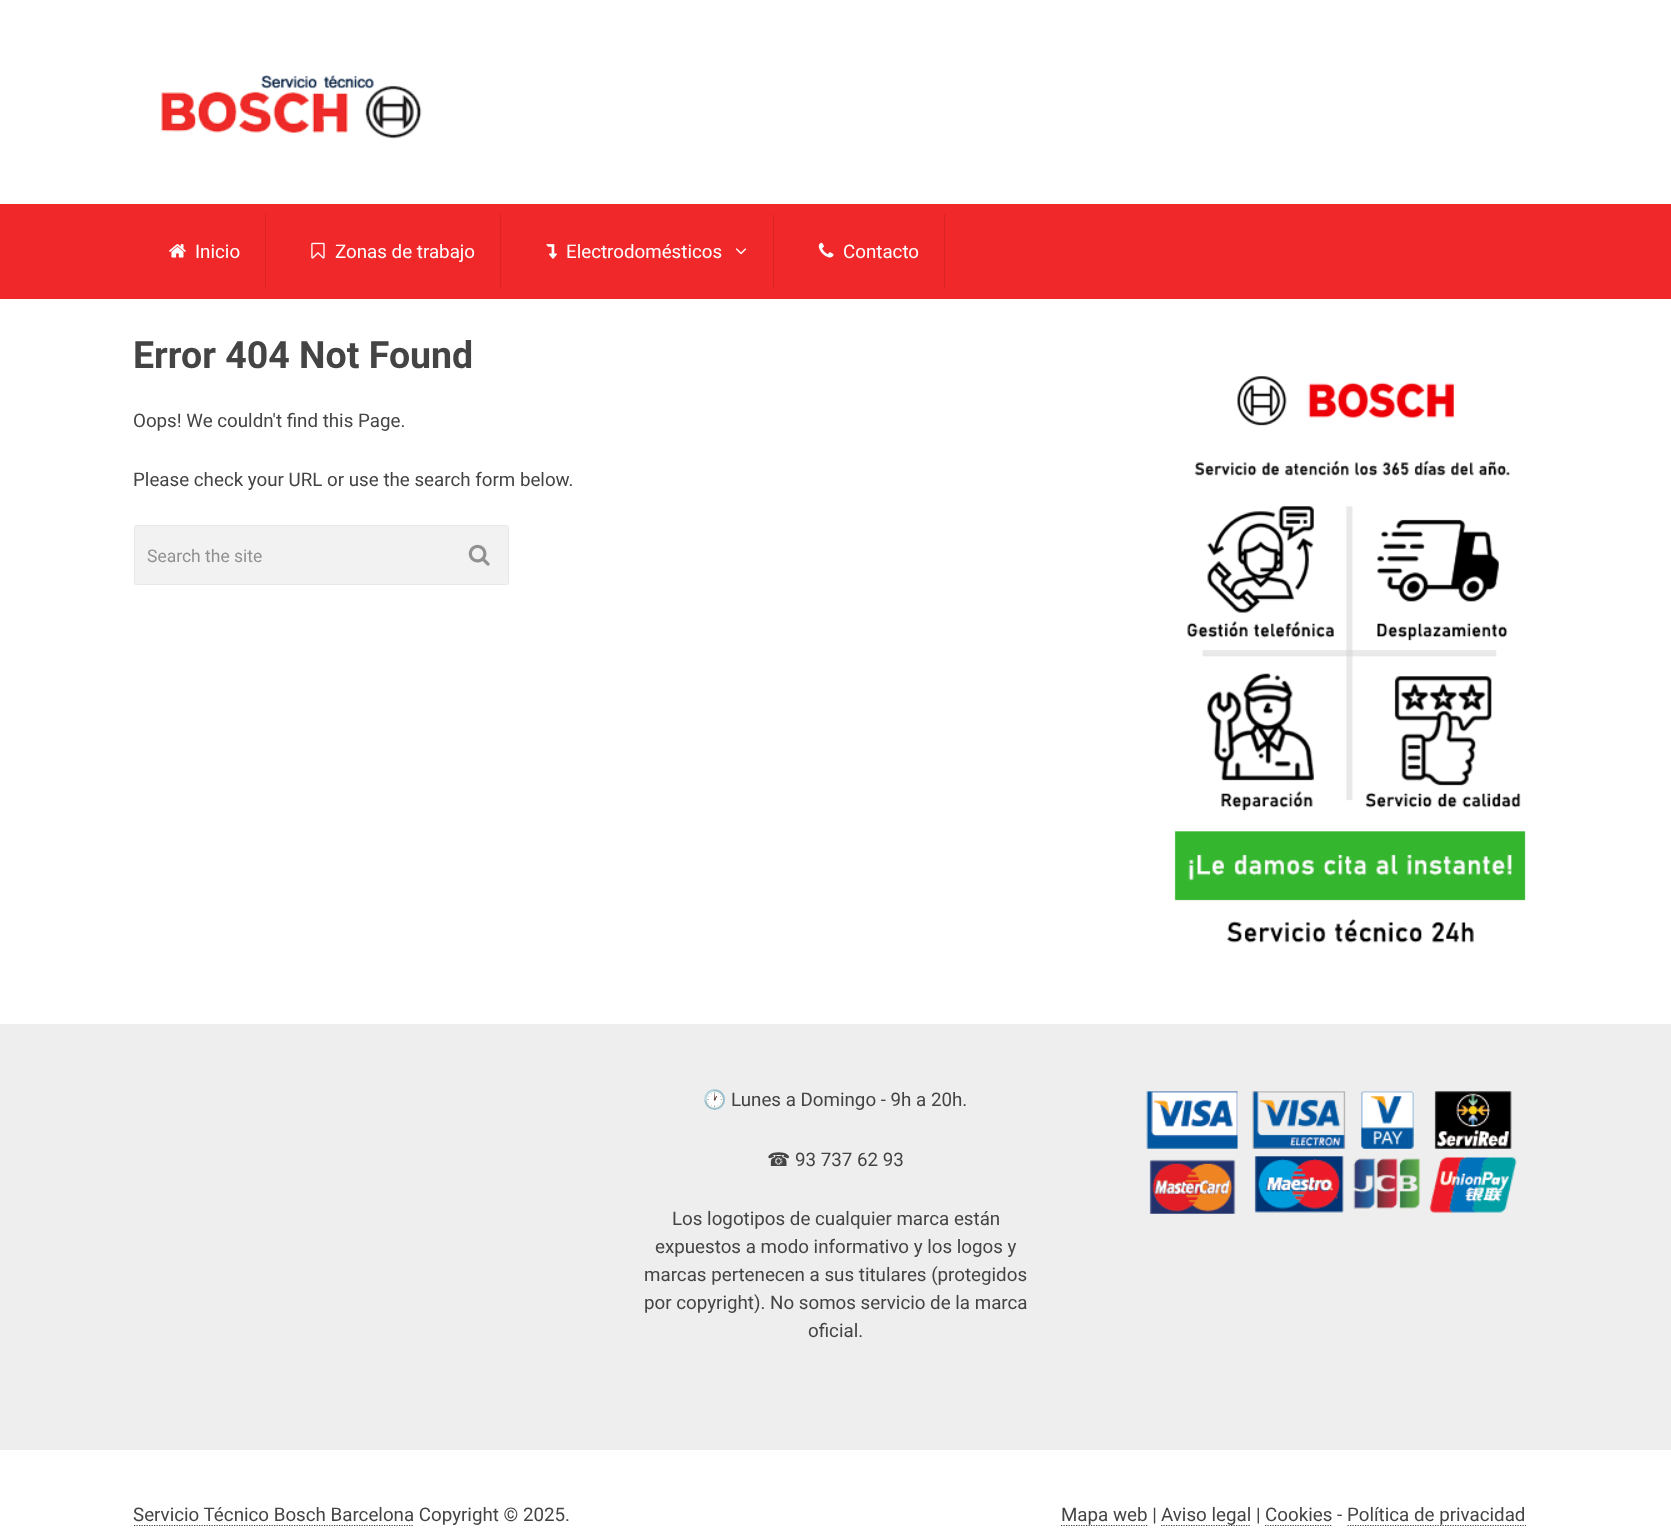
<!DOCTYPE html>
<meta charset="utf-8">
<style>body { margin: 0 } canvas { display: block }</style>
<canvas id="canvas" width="1671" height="1537"></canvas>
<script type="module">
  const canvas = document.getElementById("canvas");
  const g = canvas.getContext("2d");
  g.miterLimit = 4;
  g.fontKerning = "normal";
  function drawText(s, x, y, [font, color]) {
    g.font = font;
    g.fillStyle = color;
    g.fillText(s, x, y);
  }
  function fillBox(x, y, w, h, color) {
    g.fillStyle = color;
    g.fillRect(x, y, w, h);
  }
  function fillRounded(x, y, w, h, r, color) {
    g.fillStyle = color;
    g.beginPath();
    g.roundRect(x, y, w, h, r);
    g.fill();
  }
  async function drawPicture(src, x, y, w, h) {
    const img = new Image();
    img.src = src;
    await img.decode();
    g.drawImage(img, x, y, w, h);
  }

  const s1 = ["18.75px Roboto", "#FFFFFF"];
  const s2 = ["bold 37.5px Roboto", "#444444"];
  const s3 = ["18.75px Roboto", "#444444"];
  const s4 = ["17.5px Roboto", "#919191"];
  const s5 = ["18.75px Noto Color Emoji", "#444444"];
  const s6 = ["18.75px DejaVu Sans", "#444444"];

  fillBox(0, 0, 1671, 1537, "#FFFFFF");
  await drawPicture("pic1.png", 161, 75, 261, 64);
  fillBox(0, 204, 1671, 95, "#F02829");
  fillBox(265, 214, 1, 75, "#D82425");
  await drawPicture("pic2.png", 169, 244, 17, 14);
  drawText("Inicio", 195, 258, s1);
  fillBox(500, 214, 1, 75, "#D82425");
  await drawPicture("pic3.png", 311, 242, 14, 17);
  drawText("Zonas de trabajo", 335, 258, s1);
  fillBox(773, 214, 1, 75, "#D82425");
  await drawPicture("pic4.png", 546, 244, 11, 15);
  drawText("Electrodomésticos", 566, 258, s1);
  await drawPicture("pic5.png", 735, 248, 12, 7);
  fillBox(944, 214, 1, 75, "#D82425");
  await drawPicture("pic6.png", 818, 242, 16, 16);
  drawText("Contacto", 843, 258, s1);
  drawText("Error 404 Not Found", 133, 368, s2);
  drawText("Oops! We couldn't find this Page.", 133, 427, s3);
  drawText("Please check your URL or use the search form below.", 133, 486, s3);
  fillRounded(134, 525, 375, 60, 4, "#F2F2F2");
  g.strokeStyle = "rgba(0, 0, 0, 0.04)";
  g.strokeRect(134.5, 525.5, 374, 59);
  drawText("Search the site", 147, 562, s4);
  await drawPicture("pic7.png", 468, 544, 22, 22);
  await drawPicture("pic8.png", 1174, 376, 352, 567);
  fillBox(0, 1024, 1671, 426, "#EEEEEE");
  drawText("🕐", 703, 1106, s5);
  drawText("Lunes a Domingo - 9h a 20h.", 731, 1106, s3);
  drawText("☎", 767, 1166, s6);
  drawText("93 737 62 93", 795, 1166, s3);
  drawText("Los logotipos de cualquier marca están", 672, 1225, s3);
  drawText("expuestos a modo informativo y los logos y", 655, 1253, s3);
  drawText("marcas pertenecen a sus titulares (protegidos", 644, 1281, s3);
  drawText("por copyright). No somos servicio de la marca", 644, 1309, s3);
  drawText("oficial.", 808, 1337, s3);
  await drawPicture("pic9.png", 1146, 1091, 371, 123);
  g.beginPath();
  g.moveTo(134, 1525.5);
  g.lineTo(414, 1525.5);
  g.strokeStyle = "#444444";
  g.lineWidth = 1.2;
  g.setLineDash([1.25, 1.25]);
  g.stroke();
  drawText("Servicio Técnico Bosch Barcelona Copyright © 2025.", 133, 1521, s3);
  g.beginPath();
  g.moveTo(1061, 1525.5);
  g.lineTo(1147.5, 1525.5);
  g.stroke();
  drawText("Mapa web |", 1061, 1521, s3);
  g.beginPath();
  g.moveTo(1161, 1525.5);
  g.lineTo(1251, 1525.5);
  g.stroke();
  drawText("Aviso legal | Cookies -", 1161, 1521, s3);
  g.beginPath();
  g.moveTo(1347.5, 1525.5);
  g.lineTo(1526, 1525.5);
  g.stroke();
  drawText("Política de privacidad", 1347, 1521, s3);
  g.beginPath();
  g.moveTo(1265, 1525.5);
  g.lineTo(1332.5, 1525.5);
  g.stroke();
</script>
